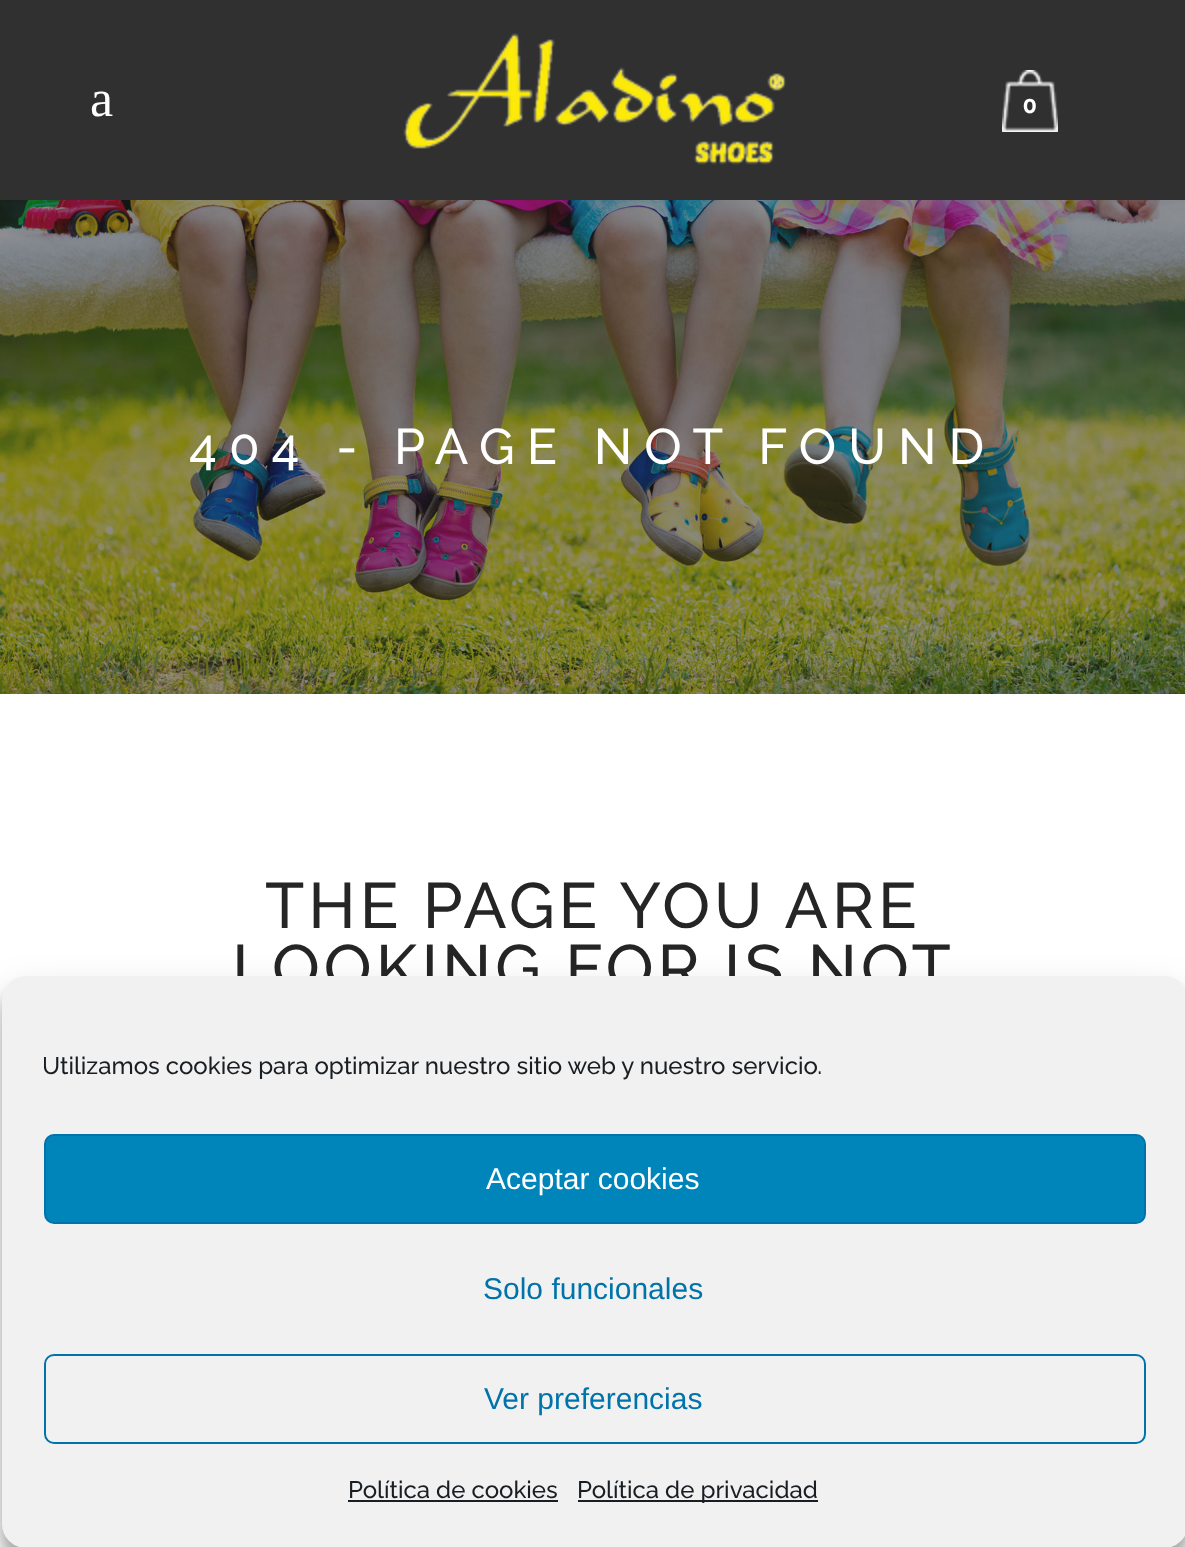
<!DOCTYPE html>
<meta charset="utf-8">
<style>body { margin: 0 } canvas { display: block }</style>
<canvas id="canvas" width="1185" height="1547"></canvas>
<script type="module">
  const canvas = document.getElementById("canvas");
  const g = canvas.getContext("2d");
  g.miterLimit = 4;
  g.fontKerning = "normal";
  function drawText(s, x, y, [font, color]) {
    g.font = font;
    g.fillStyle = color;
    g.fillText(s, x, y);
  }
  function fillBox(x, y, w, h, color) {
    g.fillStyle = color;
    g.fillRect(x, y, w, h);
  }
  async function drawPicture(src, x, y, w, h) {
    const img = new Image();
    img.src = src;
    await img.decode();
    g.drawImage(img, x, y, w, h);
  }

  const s1 = ["52px Liberation Serif", "#FFFFFF"];
  const s2 = ["bold 20px Montserrat", "#FFFFFF"];
  const s3 = ["500 50px Raleway", "#FFFFFF"];
  const s4 = ["500 64px Raleway", "#252525"];
  const s5 = ["500 24px Raleway", "#191E23"];
  const s6 = ["30px Liberation Sans", "#FFFFFF"];
  const s7 = ["30px Liberation Sans", "#0073AA"];

  fillBox(0, 0, 1185, 1547, "#FFFFFF");
  fillBox(0, 0, 1185, 200, "#303030");
  drawText("a", 90, 116, s1);
  await drawPicture("pic1.png", 403, 33, 383, 132);
  await drawPicture("pic2.png", 1002, 70, 56, 62);
  drawText("0", 1023, 113, s2);
  await drawPicture("pic3.png", 0, 200, 1185, 494);
  g.letterSpacing = "12px";
  drawText("404 - PAGE NOT FOUND", 189, 464, s3);
  g.letterSpacing = "4px";
  drawText("THE PAGE YOU ARE", 265, 928, s4);
  drawText("LOOKING FOR IS NOT", 232, 990, s4);
  g.fillStyle = "rgba(0, 0, 0, 0.23)";
  g.filter = "blur(6px)";
  g.beginPath();
  g.roundRect(2, 988, 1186, 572, 24);
  g.fill();
  g.filter = "none";
  g.fillStyle = "rgba(0, 0, 0, 0.19)";
  g.filter = "blur(20px)";
  g.beginPath();
  g.roundRect(2, 996, 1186, 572, 24);
  g.fill();
  g.filter = "none";
  g.fillStyle = "#F1F1F1";
  g.beginPath();
  g.roundRect(3, 977, 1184, 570, 23);
  g.fill();
  g.strokeStyle = "#F1F1F1";
  g.lineWidth = 2;
  g.stroke();
  g.save();
  g.beginPath();
  g.rect(44, 1048, 1102, 46);
  g.clip();
  g.letterSpacing = "0px";
  drawText("Utilizamos cookies para optimizar nuestro sitio web y nuestro servicio.", 42, 1074, s5);
  g.restore();
  g.fillStyle = "#0085BA";
  g.beginPath();
  g.roundRect(45, 1135, 1100, 88, 9);
  g.fill();
  g.strokeStyle = "#0073AA";
  g.stroke();
  g.letterSpacing = "0px";
  drawText("Aceptar cookies", 486, 1189, s6);
  drawText("Solo funcionales", 483, 1299, s7);
  g.beginPath();
  g.roundRect(45, 1355, 1100, 88, 9);
  g.stroke();
  drawText("Ver preferencias", 484, 1409, s7);
  drawText("Política de cookies", 348, 1498, s5);
  fillBox(348, 1500, 210, 2, "#191E23");
  fillBox(578, 1500, 240, 2, "#191E23");
  drawText("Política de privacidad", 577, 1498, s5);
</script>
